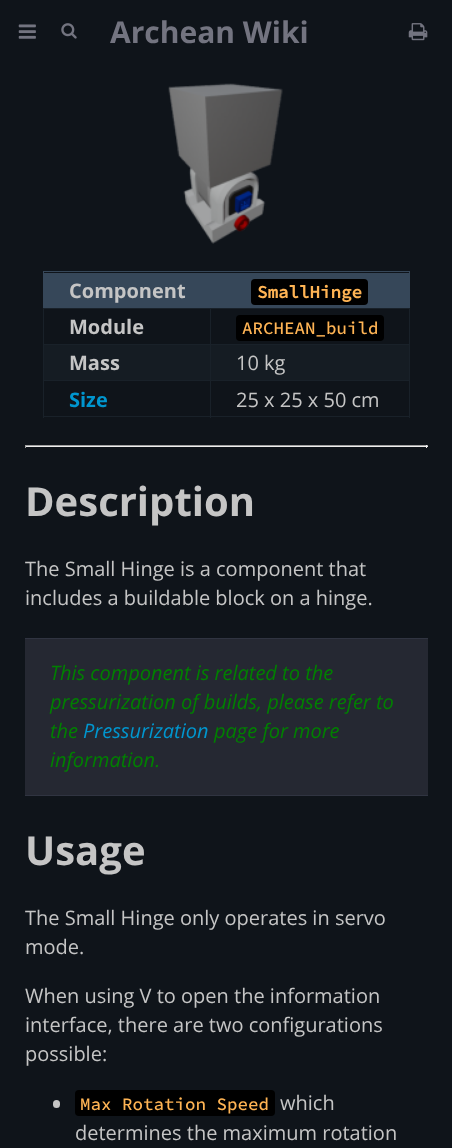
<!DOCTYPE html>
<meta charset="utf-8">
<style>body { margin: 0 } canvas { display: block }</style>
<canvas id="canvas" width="452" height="1148"></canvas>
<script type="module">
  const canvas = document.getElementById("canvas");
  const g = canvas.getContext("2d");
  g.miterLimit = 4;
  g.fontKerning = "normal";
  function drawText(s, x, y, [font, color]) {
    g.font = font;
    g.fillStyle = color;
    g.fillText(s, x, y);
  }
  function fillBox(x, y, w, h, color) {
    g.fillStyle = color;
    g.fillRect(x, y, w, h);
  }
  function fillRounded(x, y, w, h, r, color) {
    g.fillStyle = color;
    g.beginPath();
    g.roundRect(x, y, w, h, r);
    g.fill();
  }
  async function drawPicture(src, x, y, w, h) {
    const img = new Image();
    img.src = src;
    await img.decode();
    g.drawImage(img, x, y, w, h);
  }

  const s1 = ["bold 30px Open Sans", "#737480"];
  const s2 = ["bold 20px Open Sans", "#C5C5C5"];
  const s3 = ["bold 17.5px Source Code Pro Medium", "#FFB454"];
  const s4 = ["500 17.5px Source Code Pro Medium", "#FFB454"];
  const s5 = ["20px Open Sans", "#C5C5C5"];
  const s6 = ["bold 20px Open Sans", "#0096CF"];
  const s7 = ["bold 40px Open Sans", "#C5C5C5"];
  const s8 = ["italic 20px Open Sans", "#008000"];
  const s9 = ["italic 20px Open Sans", "#0096CF"];

  fillBox(0, 0, 452, 1148, "#0F141A");
  await drawPicture("pic1.png", 18, 24, 18, 15);
  await drawPicture("pic2.png", 61, 23, 16, 16);
  drawText("Archean Wiki", 110, 43, s1);
  await drawPicture("pic3.png", 408, 23, 20, 18);
  await drawPicture("pic4.png", 168, 83, 115, 161);
  fillBox(44, 273, 365, 35, "#364759");
  fillBox(43, 271, 367, 1, "#364759");
  fillBox(409, 271, 1, 38, "#364759");
  fillBox(43, 271, 1, 38, "#364759");
  drawText("Component", 69, 298, s2);
  fillRounded(251, 279, 117, 26, 4, "#000000");
  drawText("SmallHinge", 257, 298, s3);
  fillBox(210, 308, 200, 1, "#192129");
  fillBox(210, 344, 200, 1, "#192129");
  fillBox(44, 345, 365, 35, "#151C23");
  fillBox(210, 380, 200, 1, "#192129");
  fillBox(409, 380, 1, 38, "#192129");
  fillBox(210, 416, 200, 1, "#192129");
  fillBox(210, 380, 1, 38, "#192129");
  fillBox(43, 380, 168, 1, "#192129");
  fillBox(210, 344, 1, 37, "#192129");
  fillBox(43, 344, 168, 1, "#192129");
  fillBox(210, 308, 1, 37, "#192129");
  fillBox(43, 308, 168, 1, "#192129");
  fillBox(43, 416, 168, 1, "#192129");
  fillBox(43, 380, 1, 38, "#192129");
  fillBox(43, 344, 1, 37, "#192129");
  fillBox(43, 308, 1, 37, "#192129");
  drawText("Module", 69, 334, s2);
  fillBox(409, 344, 1, 37, "#192129");
  fillBox(409, 308, 1, 37, "#192129");
  fillRounded(236, 315, 148, 26, 4, "#000000");
  drawText("ARCHEAN_build", 242, 334, s4);
  drawText("Mass", 69, 370, s2);
  drawText("10 kg", 236, 370, s5);
  drawText("Size", 69, 407, s6);
  drawText("25 x 25 x 50 cm", 236, 407, s5);
  fillBox(25, 445, 403, 1, "#9F9F9F");
  fillBox(426, 445, 1, 3, "#EEEEEE");
  fillBox(25, 446, 403, 1, "#EEEEEE");
  fillBox(25, 445, 1, 3, "#9F9F9F");
  drawText("Description", 25, 516, s7);
  drawText("The Small Hinge is a component that", 25, 576, s5);
  drawText("includes a buildable block on a hinge.", 25, 605, s5);
  fillBox(25, 639, 403, 156, "#252832");
  fillBox(25, 638, 403, 1, "#303441");
  fillBox(25, 795, 403, 1, "#303441");
  drawText("This component is related to the", 50, 680, s8);
  drawText("pressurization of builds, please refer to", 50, 709, s8);
  drawText("the", 50, 738, s8);
  drawText("Pressurization", 83, 738, s9);
  drawText("page for more", 214, 738, s8);
  drawText("information.", 50, 767, s8);
  drawText("Usage", 25, 865, s7);
  drawText("The Small Hinge only operates in servo", 25, 925, s5);
  drawText("mode.", 25, 954, s5);
  drawText("When using V to open the information", 25, 1003, s5);
  drawText("interface, there are two configurations", 25, 1032, s5);
  drawText("possible:", 25, 1061, s5);
  fillRounded(53, 1100, 7, 8, 3.5, "#C5C5C5");
  fillRounded(75, 1090, 200, 26, 4, "#000000");
  drawText("Max Rotation Speed", 80, 1110, s4);
  drawText("which", 280, 1110, s5);
  drawText("determines the maximum rotation", 75, 1140, s5);
</script>
